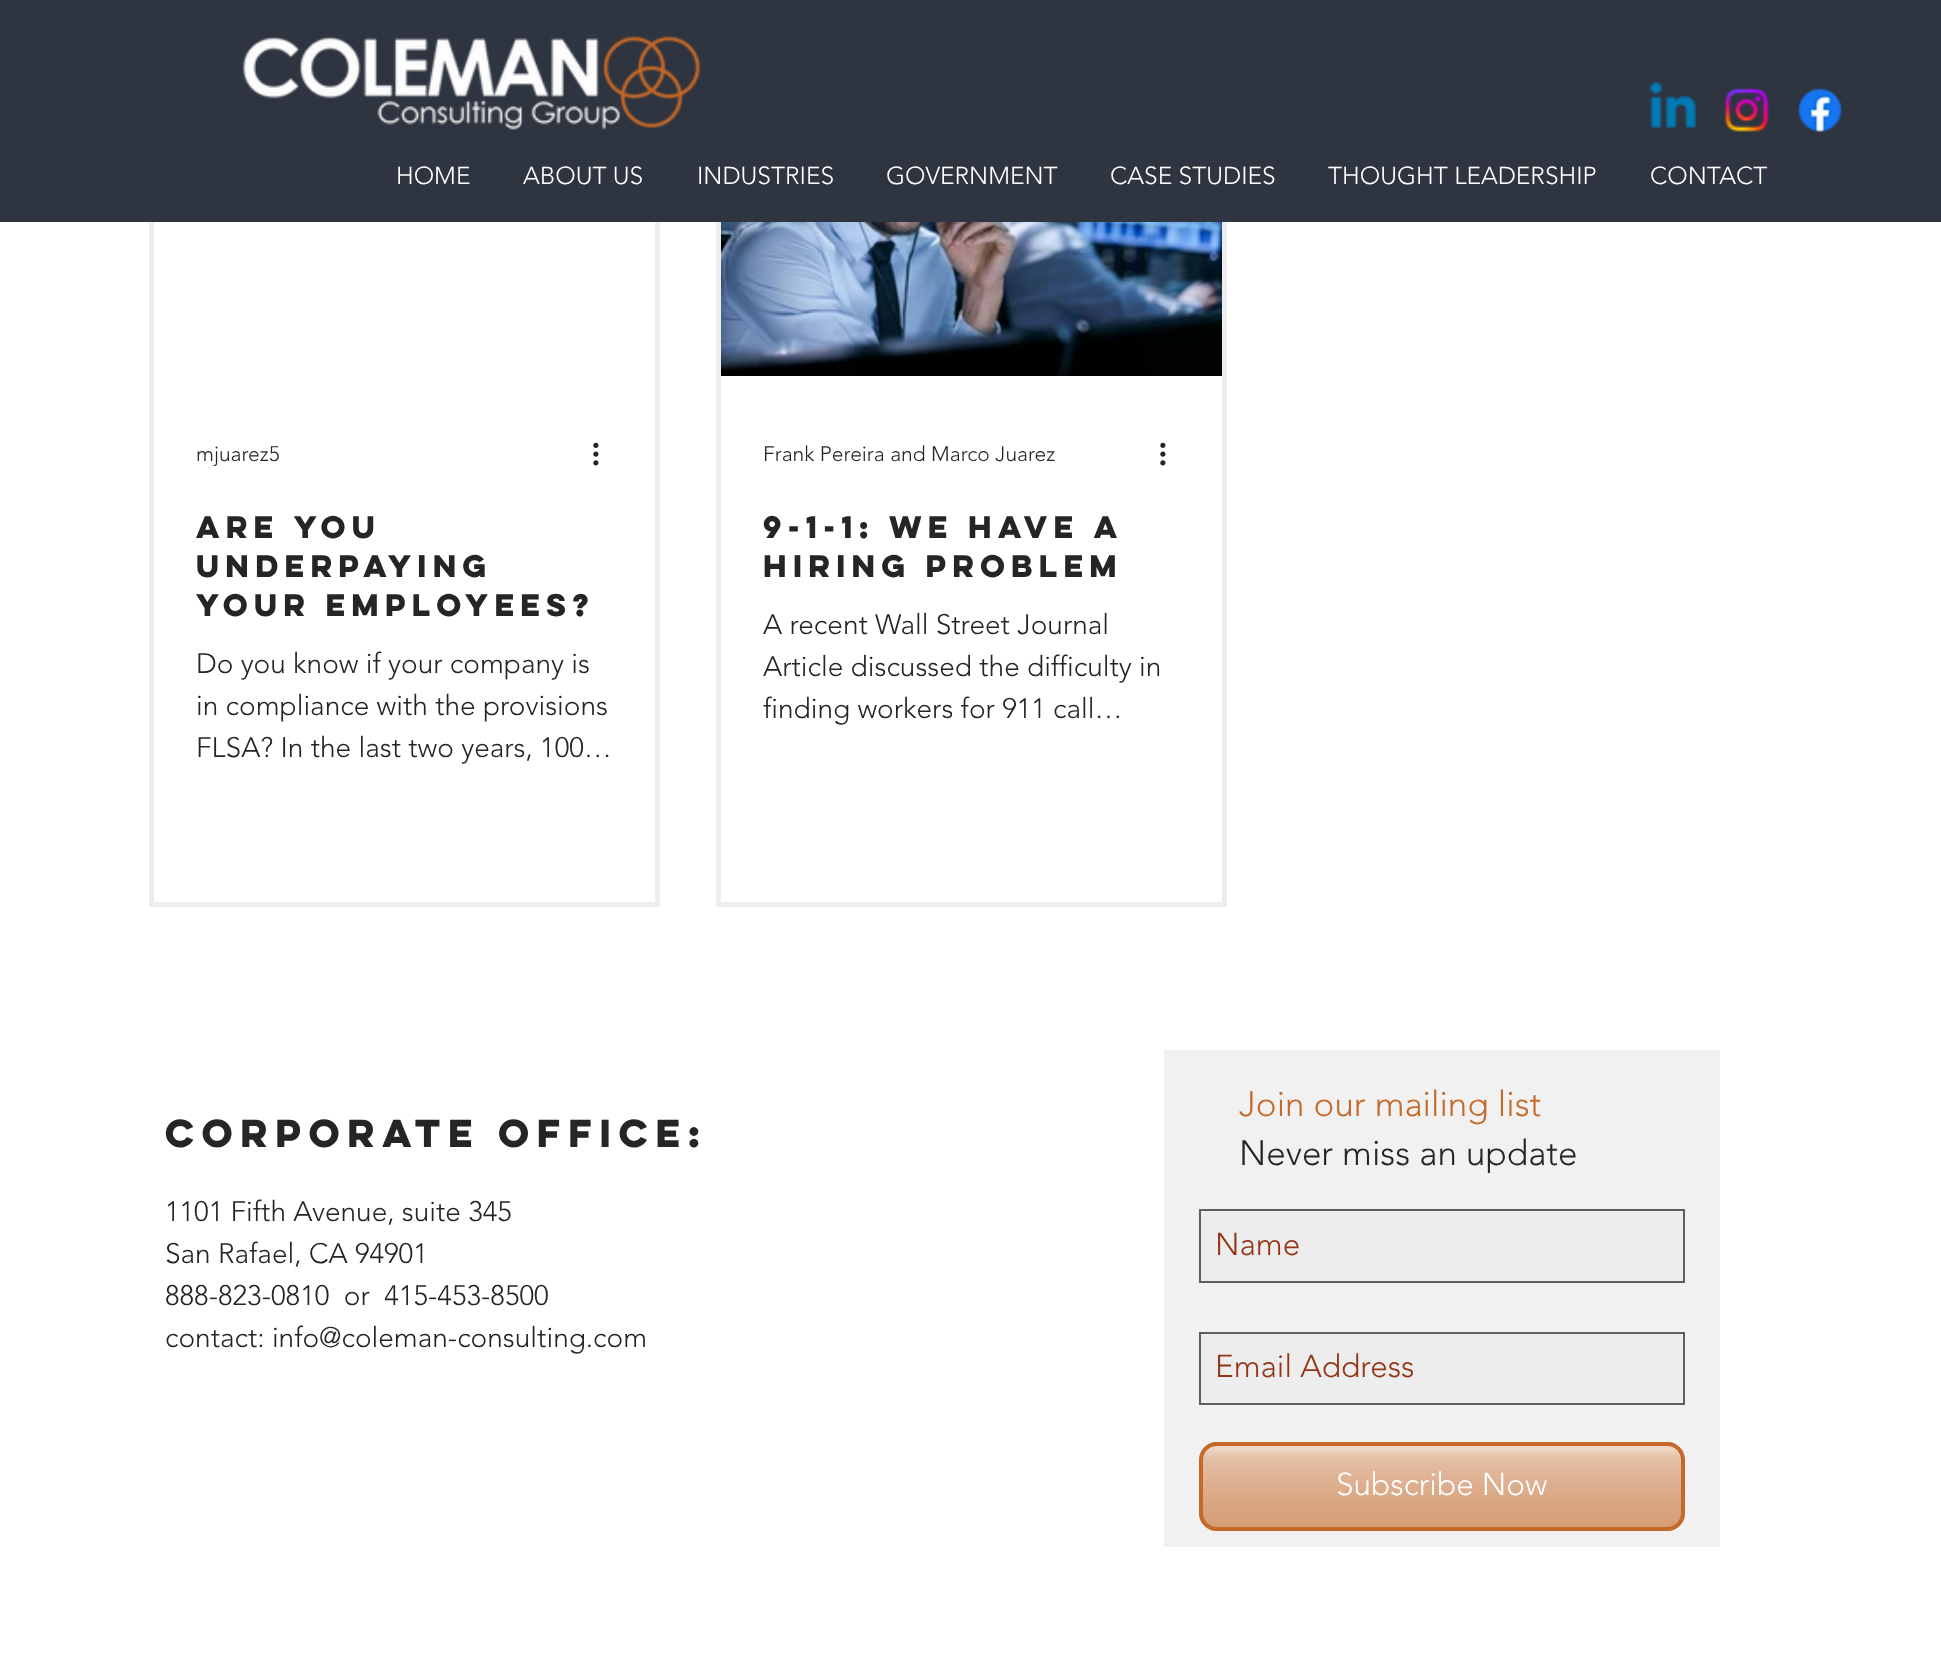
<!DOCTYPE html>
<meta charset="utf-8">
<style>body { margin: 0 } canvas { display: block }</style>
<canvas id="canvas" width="1941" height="1663"></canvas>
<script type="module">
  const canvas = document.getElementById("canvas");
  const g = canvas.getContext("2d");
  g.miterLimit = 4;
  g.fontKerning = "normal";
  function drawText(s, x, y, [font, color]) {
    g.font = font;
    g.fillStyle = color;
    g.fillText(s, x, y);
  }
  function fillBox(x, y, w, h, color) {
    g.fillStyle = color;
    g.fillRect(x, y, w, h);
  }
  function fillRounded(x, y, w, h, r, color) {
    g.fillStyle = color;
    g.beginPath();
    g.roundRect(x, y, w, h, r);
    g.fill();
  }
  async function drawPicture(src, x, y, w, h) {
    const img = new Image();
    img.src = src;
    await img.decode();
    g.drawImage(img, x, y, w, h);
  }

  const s1 = ["300 24.5px 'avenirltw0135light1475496'", "#FFFFFF"];
  const s2 = ["300 21px 'avenirltw0135light1475496'", "#252525"];
  const s3 = ["bold 28px 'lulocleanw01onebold'", "#252525"];
  const s4 = ["300 28px 'avenirltw0135light1475496'", "#252525"];
  const s5 = ["bold 35px 'lulocleanw01onebold'", "#252525"];
  const s6 = ["300 35px 'avenirltw0135light1475496'", "#C56929"];
  const s7 = ["300 35px 'avenirltw0135light1475496'", "#252525"];
  const s8 = ["300 31.5px 'avenirltw0135light1475496'", "#943616"];
  const s9 = ["300 31.5px 'avenirltw0135light1475496'", "#FFFFFF"];

  fillBox(0, 0, 1941, 1663, "#FFFFFF");
  g.strokeStyle = "#EDEDED";
  g.lineWidth = 5;
  g.strokeRect(151.5, 95.5, 506, 809);
  g.strokeRect(718.5, 95.5, 506, 809);
  fillBox(0, 0, 1941, 222, "#2F3540");
  await drawPicture("pic1.png", 242, 36, 459, 94);
  await drawPicture("pic2.png", 1649, 82, 48, 46);
  await drawPicture("pic3.png", 1724, 87, 46, 46);
  await drawPicture("pic4.png", 1797, 87, 46, 46);
  drawText("HOME", 396, 184, s1);
  drawText("ABOUT US", 523, 184, s1);
  drawText("INDUSTRIES", 697, 184, s1);
  drawText("GOVERNMENT", 886, 184, s1);
  drawText("CASE STUDIES", 1110, 184, s1);
  drawText("THOUGHT LEADERSHIP", 1328, 184, s1);
  drawText("CONTACT", 1650, 184, s1);
  drawText("mjuarez5", 196, 461, s2);
  await drawPicture("pic5.png", 593, 442, 6, 24);
  drawText("Are You", 196, 538, s3);
  drawText("Underpaying", 196, 577, s3);
  drawText("Your Employees?", 196, 616, s3);
  drawText("Do you know if your company is", 196, 673, s4);
  drawText("in compliance with the provisions", 196, 715, s4);
  drawText("FLSA? In the last two years, 100…", 196, 757, s4);
  await drawPicture("pic6.png", 721, 222, 501, 154);
  drawText("Frank Pereira and Marco Juarez", 763, 461, s2);
  await drawPicture("pic5.png", 1160, 442, 6, 24);
  drawText("9-1-1: We Have a", 763, 538, s3);
  drawText("Hiring Problem", 763, 577, s3);
  drawText("A recent Wall Street Journal", 763, 634, s4);
  drawText("Article discussed the difficulty in", 763, 676, s4);
  drawText("finding workers for 911 call…", 763, 718, s4);
  drawText("corporate office:", 165, 1147, s5);
  fillBox(1164, 1050, 556, 497, "#F1F1F1");
  drawText("Join our mailing list", 1239, 1116, s6);
  drawText("Never miss an update", 1239, 1165, s7);
  g.fillStyle = "#EDEDED";
  g.beginPath();
  g.rect(1200, 1210, 484, 72);
  g.fill();
  g.strokeStyle = "#605E5E";
  g.lineWidth = 2;
  g.stroke();
  drawText("Name", 1215, 1255, s8);
  g.fillStyle = "#EDEDED";
  g.beginPath();
  g.rect(1200, 1333, 484, 71);
  g.fill();
  g.stroke();
  drawText("Email Address", 1215, 1377, s8);
  fillRounded(1199, 1442, 486, 89, 18, "#D69E77");
  await drawPicture("pic7.png", 1199, 1445, 486, 76);
  g.beginPath();
  g.roundRect(1201, 1444, 482, 85, 16);
  g.strokeStyle = "#C56929";
  g.lineWidth = 4;
  g.stroke();
  drawText("Subscribe Now", 1336, 1495, s9);
  drawText("1101 Fifth Avenue, suite 345", 165, 1221, s4);
  drawText("San Rafael, CA 94901", 165, 1263, s4);
  drawText("888-823-0810  or  415-453-8500", 165, 1305, s4);
  drawText("contact: info@coleman-consulting.com", 165, 1347, s4);
</script>
